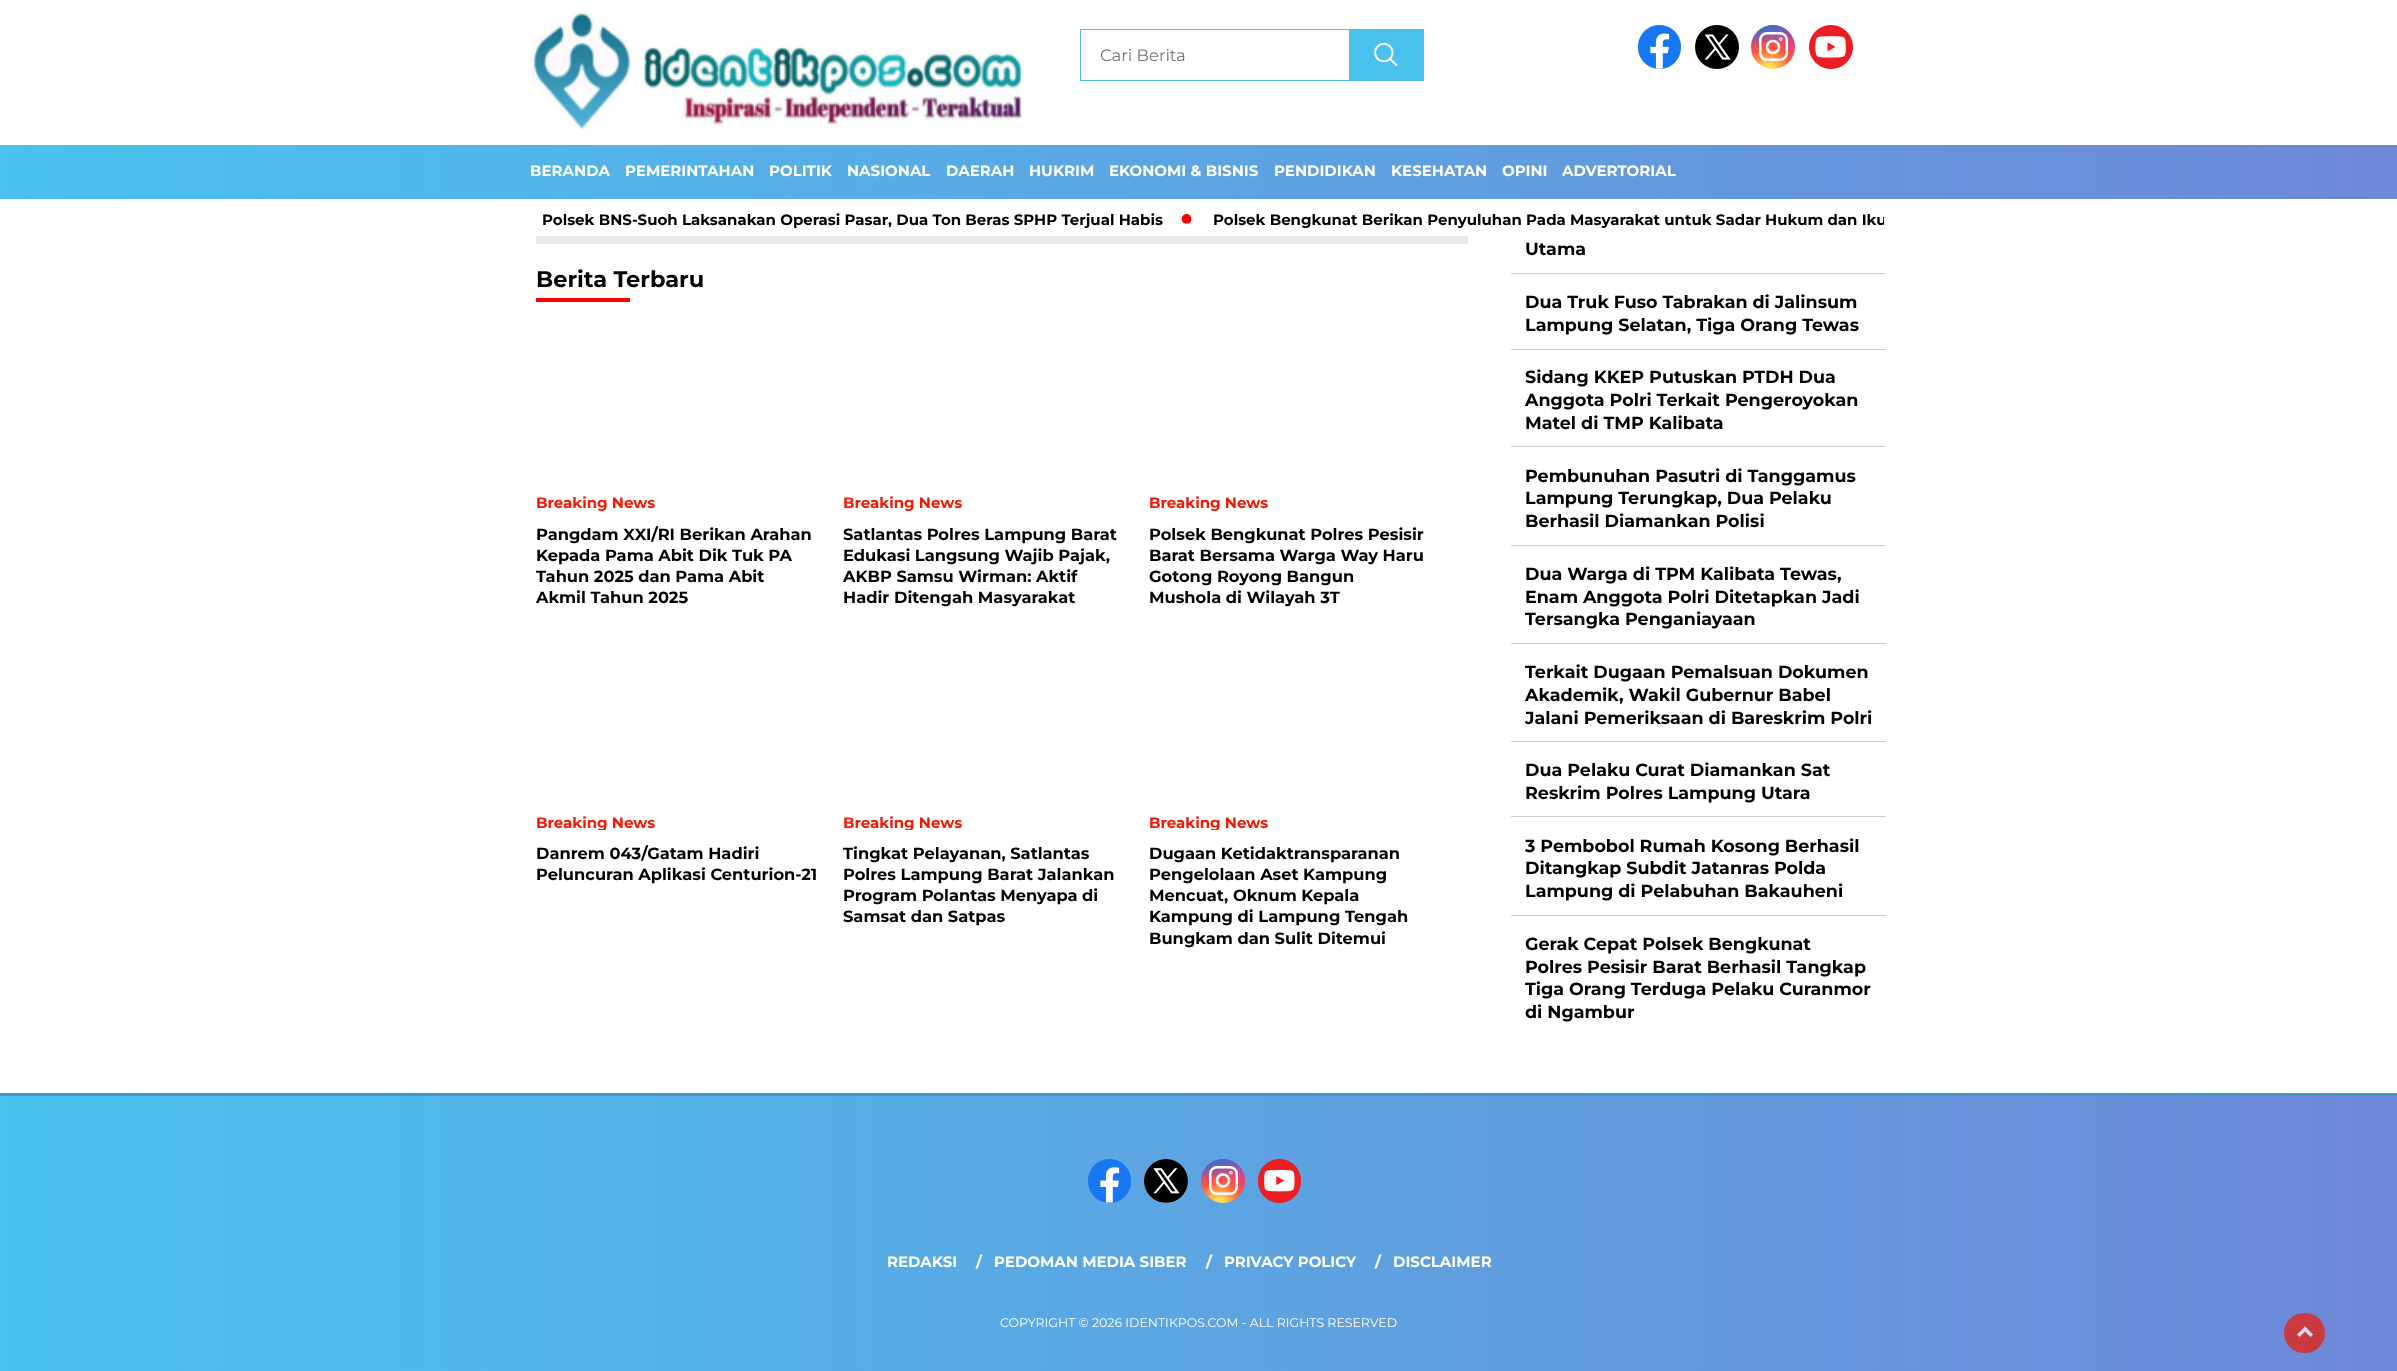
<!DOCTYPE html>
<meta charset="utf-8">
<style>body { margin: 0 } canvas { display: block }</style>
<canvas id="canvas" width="2397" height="1371"></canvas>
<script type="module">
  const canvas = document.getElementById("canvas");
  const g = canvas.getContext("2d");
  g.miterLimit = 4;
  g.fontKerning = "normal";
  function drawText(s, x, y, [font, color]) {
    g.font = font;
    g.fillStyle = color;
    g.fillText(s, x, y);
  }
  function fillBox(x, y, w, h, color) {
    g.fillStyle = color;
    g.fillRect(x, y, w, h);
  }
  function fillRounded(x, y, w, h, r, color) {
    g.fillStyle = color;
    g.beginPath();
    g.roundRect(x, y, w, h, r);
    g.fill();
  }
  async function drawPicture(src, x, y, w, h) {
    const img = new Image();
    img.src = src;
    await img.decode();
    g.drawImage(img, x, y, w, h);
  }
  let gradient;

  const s1 = ["16.5px Montserrat", "#757575"];
  const s2 = ["bold 15px Montserrat", "#FFFFFF"];
  const s3 = ["bold 15px Montserrat", "#000000"];
  const s4 = ["bold 50px Montserrat", "#FF0000"];
  const s5 = ["bold 22.5px Montserrat", "#000000"];
  const s6 = ["bold 15px Montserrat", "#F51700"];
  const s7 = ["bold 16.25px Montserrat", "#000000"];
  const s8 = ["bold 17.5px Montserrat", "#000000"];
  const s9 = ["12.5px Montserrat", "#FFFFFF"];

  fillBox(0, 0, 2397, 1371, "#FFFFFF");
  await drawPicture("pic1.png", 530, 12, 493, 118);
  g.strokeStyle = "#4AC2ED";
  g.strokeRect(1080.5, 29.5, 269, 51);
  drawText("Cari Berita", 1100, 61, s1);
  fillBox(1350, 29, 74, 52, "#4AC2ED");
  await drawPicture("pic2.png", 1374, 42, 24, 25);
  await drawPicture("pic3.png", 1638, 25, 43, 44);
  await drawPicture("pic4.png", 1695, 25, 44, 44);
  gradient = g.createRadialGradient(1769, 69, 0, 1769, 69, 44);
  gradient.addColorStop(0.1, "#FFDD55");
  gradient.addColorStop(0.5, "#FF543E");
  gradient.addColorStop(1, "#C837AB");
  g.fillStyle = gradient;
  g.beginPath();
  g.arc(1773, 47, 22, 0, Math.PI * 2);
  g.fill();
  gradient = g.createLinearGradient(1751, 25, 1760, 69);
  gradient.addColorStop(0.1, "#3771C8");
  gradient.addColorStop(0.5, "rgba(55, 113, 200, 0)");
  g.fillStyle = gradient;
  g.beginPath();
  g.arc(1773, 47, 22, 0, Math.PI * 2);
  g.fill();
  g.beginPath();
  g.roundRect(1760.25, 33.25, 26.5, 26.5, 6.75);
  g.strokeStyle = "#FFFFFF";
  g.lineWidth = 2.5;
  g.stroke();
  g.beginPath();
  g.arc(1773, 47, 6, 0, Math.PI * 2);
  g.lineWidth = 2.6;
  g.stroke();
  g.beginPath();
  g.arc(1780.9, 39.1, 0.5, 0, Math.PI * 2);
  g.stroke();
  await drawPicture("pic5.png", 1809, 25, 44, 44);
  gradient = g.createLinearGradient(0, 172, 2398, 172);
  gradient.addColorStop(0, "#4AC2ED");
  gradient.addColorStop(1, "#6E88D7");
  g.fillStyle = gradient;
  g.fillRect(0, 145, 2397, 54);
  drawText("BERANDA", 530, 176, s2);
  drawText("PEMERINTAHAN", 625, 176, s2);
  drawText("POLITIK", 769, 176, s2);
  drawText("NASIONAL", 847, 176, s2);
  drawText("DAERAH", 946, 176, s2);
  drawText("HUKRIM", 1029, 176, s2);
  drawText("EKONOMI & BISNIS", 1109, 176, s2);
  drawText("PENDIDIKAN", 1274, 176, s2);
  drawText("KESEHATAN", 1391, 176, s2);
  drawText("OPINI", 1502, 176, s2);
  drawText("ADVERTORIAL", 1562, 176, s2);
  drawText("Polsek BNS-Suoh Laksanakan Operasi Pasar, Dua Ton Beras SPHP Terjual Habis", 542, 225, s3);
  drawText("·", 1179, 233, s4);
  g.save();
  g.beginPath();
  g.rect(515, 199, 1369, 37);
  g.clip();
  drawText("Polsek Bengkunat Berikan Penyuluhan Pada Masyarakat untuk Sadar Hukum dan Iku", 1213, 225, s3);
  g.restore();
  fillBox(536, 236, 932, 8, "#EBEBEB");
  drawText("Berita Terbaru", 536, 287, s5);
  fillBox(536, 298, 94, 4, "#FF0000");
  drawText("Breaking News", 536, 508, s6);
  drawText("Pangdam XXI/RI Berikan Arahan", 536, 540, s7);
  drawText("Kepada Pama Abit Dik Tuk PA", 536, 561, s7);
  drawText("Tahun 2025 dan Pama Abit", 536, 582, s7);
  drawText("Akmil Tahun 2025", 536, 603, s7);
  drawText("Breaking News", 843, 508, s6);
  drawText("Satlantas Polres Lampung Barat", 843, 540, s7);
  drawText("Edukasi Langsung Wajib Pajak,", 843, 561, s7);
  drawText("AKBP Samsu Wirman: Aktif", 843, 582, s7);
  drawText("Hadir Ditengah Masyarakat", 843, 603, s7);
  drawText("Breaking News", 1149, 508, s6);
  drawText("Polsek Bengkunat Polres Pesisir", 1149, 540, s7);
  drawText("Barat Bersama Warga Way Haru", 1149, 561, s7);
  drawText("Gotong Royong Bangun", 1149, 582, s7);
  drawText("Mushola di Wilayah 3T", 1149, 603, s7);
  g.save();
  g.beginPath();
  g.rect(536, 815, 282, 15);
  g.clip();
  drawText("Breaking News", 536, 828, s6);
  g.restore();
  drawText("Danrem 043/Gatam Hadiri", 536, 859, s7);
  drawText("Peluncuran Aplikasi Centurion-21", 536, 880, s7);
  g.save();
  g.beginPath();
  g.rect(843, 815, 281, 15);
  g.clip();
  drawText("Breaking News", 843, 828, s6);
  g.restore();
  g.save();
  g.beginPath();
  g.rect(843, 843, 281, 85);
  g.clip();
  drawText("Tingkat Pelayanan, Satlantas", 843, 859, s7);
  g.restore();
  drawText("Polres Lampung Barat Jalankan", 843, 880, s7);
  drawText("Program Polantas Menyapa di", 843, 901, s7);
  drawText("Samsat dan Satpas", 843, 922, s7);
  g.save();
  g.beginPath();
  g.rect(1149, 815, 281, 15);
  g.clip();
  drawText("Breaking News", 1149, 828, s6);
  g.restore();
  drawText("Dugaan Ketidaktransparanan", 1149, 859, s7);
  drawText("Pengelolaan Aset Kampung", 1149, 880, s7);
  drawText("Mencuat, Oknum Kepala", 1149, 901, s7);
  drawText("Kampung di Lampung Tengah", 1149, 922, s7);
  drawText("Bungkam dan Sulit Ditemui", 1149, 944, s7);
  fillBox(1511, 273, 375, 1, "#CCCCCC");
  drawText("Utama", 1525, 255, s8);
  fillBox(1511, 349, 375, 1, "#CCCCCC");
  drawText("Dua Truk Fuso Tabrakan di Jalinsum", 1525, 308, s8);
  drawText("Lampung Selatan, Tiga Orang Tewas", 1525, 331, s8);
  fillBox(1511, 446, 375, 1, "#CCCCCC");
  drawText("Sidang KKEP Putuskan PTDH Dua", 1525, 383, s8);
  drawText("Anggota Polri Terkait Pengeroyokan", 1525, 406, s8);
  drawText("Matel di TMP Kalibata", 1525, 429, s8);
  fillBox(1511, 545, 375, 1, "#CCCCCC");
  drawText("Pembunuhan Pasutri di Tanggamus", 1525, 482, s8);
  drawText("Lampung Terungkap, Dua Pelaku", 1525, 504, s8);
  drawText("Berhasil Diamankan Polisi", 1525, 527, s8);
  fillBox(1511, 643, 375, 1, "#CCCCCC");
  drawText("Dua Warga di TPM Kalibata Tewas,", 1525, 580, s8);
  drawText("Enam Anggota Polri Ditetapkan Jadi", 1525, 603, s8);
  drawText("Tersangka Penganiayaan", 1525, 625, s8);
  fillBox(1511, 741, 375, 1, "#CCCCCC");
  drawText("Terkait Dugaan Pemalsuan Dokumen", 1525, 678, s8);
  drawText("Akademik, Wakil Gubernur Babel", 1525, 701, s8);
  drawText("Jalani Pemeriksaan di Bareskrim Polri", 1525, 724, s8);
  fillBox(1511, 816, 375, 1, "#CCCCCC");
  drawText("Dua Pelaku Curat Diamankan Sat", 1525, 776, s8);
  drawText("Reskrim Polres Lampung Utara", 1525, 799, s8);
  fillBox(1511, 915, 375, 1, "#CCCCCC");
  drawText("3 Pembobol Rumah Kosong Berhasil", 1525, 852, s8);
  drawText("Ditangkap Subdit Jatanras Polda", 1525, 874, s8);
  drawText("Lampung di Pelabuhan Bakauheni", 1525, 897, s8);
  drawText("Gerak Cepat Polsek Bengkunat", 1525, 950, s8);
  drawText("Polres Pesisir Barat Berhasil Tangkap", 1525, 973, s8);
  drawText("Tiga Orang Terduga Pelaku Curanmor", 1525, 995, s8);
  drawText("di Ngambur", 1525, 1018, s8);
  gradient = g.createLinearGradient(0, 1233, 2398, 1233);
  gradient.addColorStop(0, "#4AC2ED");
  gradient.addColorStop(1, "#6E88D7");
  g.fillStyle = gradient;
  g.fillRect(0, 1096, 2397, 275);
  fillBox(0, 1093, 2397, 3, "#3B9BBE");
  await drawPicture("pic6.png", 1088, 1159, 43, 44);
  await drawPicture("pic7.png", 1144, 1159, 44, 44);
  gradient = g.createRadialGradient(1219, 1203, 0, 1219, 1203, 44);
  gradient.addColorStop(0.1, "#FFDD55");
  gradient.addColorStop(0.5, "#FF543E");
  gradient.addColorStop(1, "#C837AB");
  g.fillStyle = gradient;
  g.beginPath();
  g.arc(1223, 1181, 22, 0, Math.PI * 2);
  g.fill();
  gradient = g.createLinearGradient(1201, 1159, 1210, 1203);
  gradient.addColorStop(0.1, "#3771C8");
  gradient.addColorStop(0.5, "rgba(55, 113, 200, 0)");
  g.fillStyle = gradient;
  g.beginPath();
  g.arc(1223, 1181, 22, 0, Math.PI * 2);
  g.fill();
  g.beginPath();
  g.roundRect(1210.25, 1167.25, 26.5, 26.5, 6.75);
  g.lineWidth = 2.5;
  g.stroke();
  g.beginPath();
  g.arc(1223, 1180.5, 6, 0, Math.PI * 2);
  g.lineWidth = 2.6;
  g.stroke();
  g.beginPath();
  g.arc(1230.9, 1172.8, 0.5, 0, Math.PI * 2);
  g.stroke();
  await drawPicture("pic8.png", 1258, 1159, 43, 44);
  drawText("REDAKSI", 887, 1267, s2);
  drawText("/", 976, 1267, s2);
  drawText("PEDOMAN MEDIA SIBER", 994, 1267, s2);
  drawText("/", 1206, 1267, s2);
  drawText("PRIVACY POLICY", 1224, 1267, s2);
  drawText("/", 1375, 1267, s2);
  drawText("DISCLAIMER", 1393, 1267, s2);
  drawText("COPYRIGHT © 2026 IDENTIKPOS.COM - ALL RIGHTS RESERVED", 1000, 1327, s9);
  fillRounded(2284, 1313, 41, 40, 20, "#CC3A41");
  g.fillStyle = "#D3DCF3";
  g.beginPath();
  g.moveTo(2299.5, 1337);
  g.lineTo(2297, 1334.5);
  g.lineTo(2305, 1326.5);
  g.lineTo(2307.5, 1329);
  g.closePath();
  g.fill();
  g.beginPath();
  g.moveTo(2310.5, 1337);
  g.lineTo(2302.5, 1329);
  g.lineTo(2305, 1326.5);
  g.lineTo(2313, 1334.5);
  g.closePath();
  g.fill();
</script>
